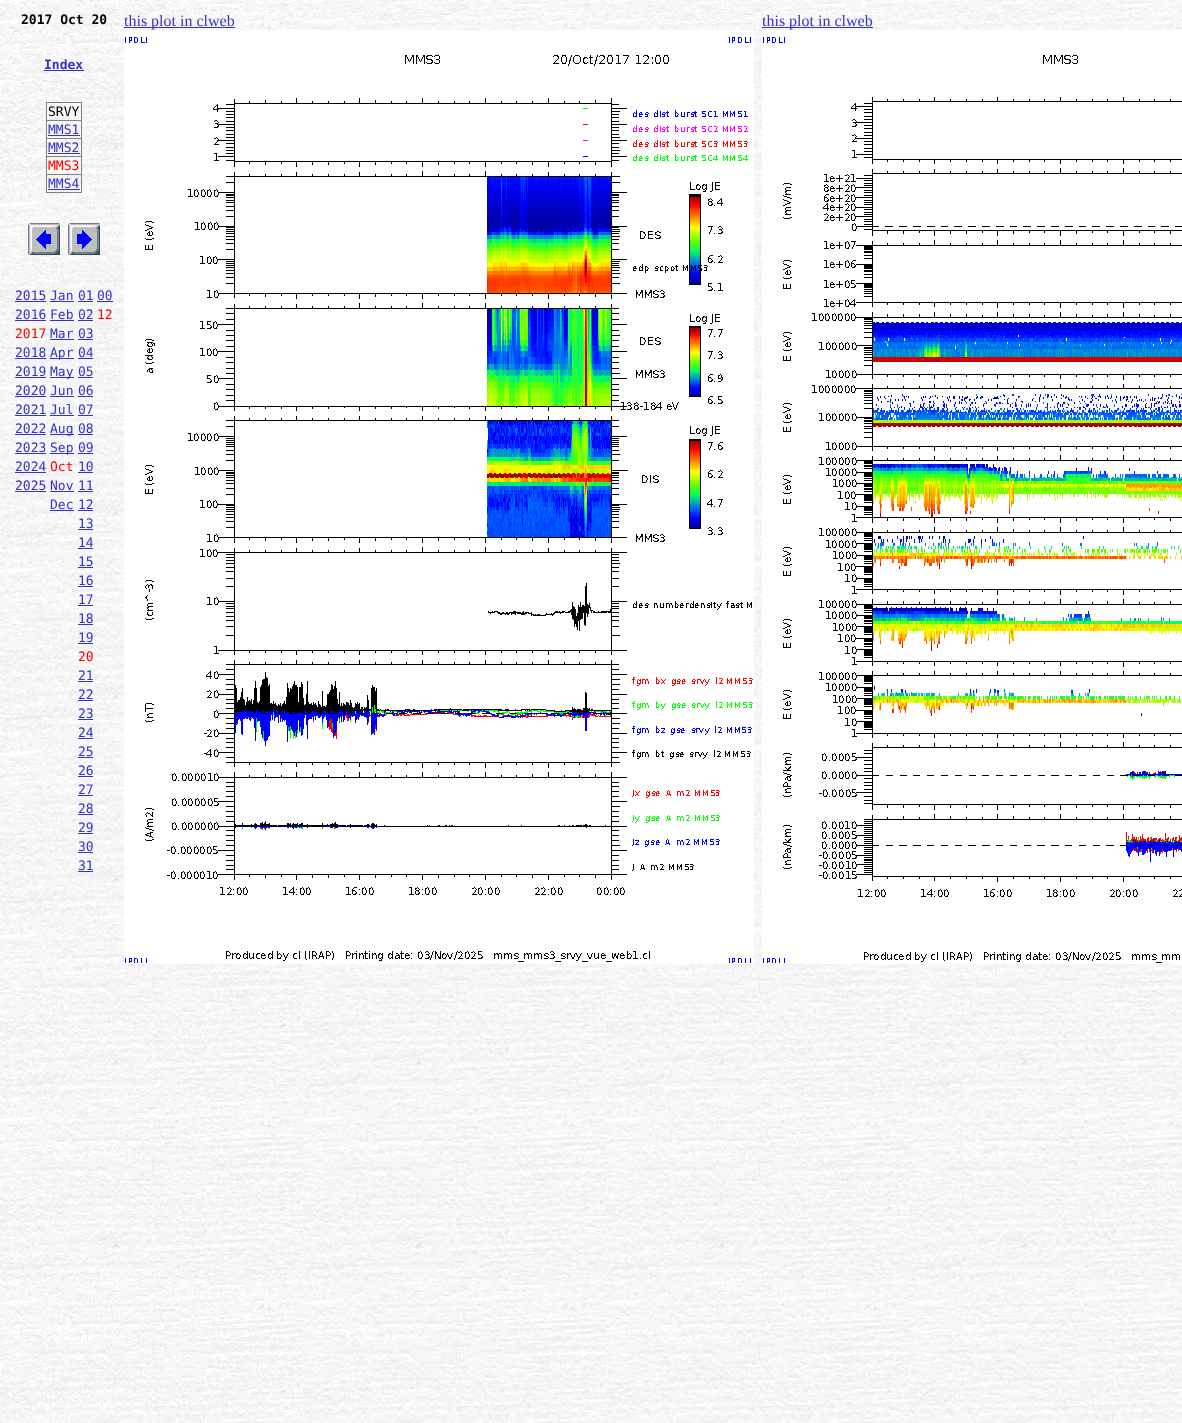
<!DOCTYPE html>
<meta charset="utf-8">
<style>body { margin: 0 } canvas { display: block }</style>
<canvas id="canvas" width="1182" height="1423"></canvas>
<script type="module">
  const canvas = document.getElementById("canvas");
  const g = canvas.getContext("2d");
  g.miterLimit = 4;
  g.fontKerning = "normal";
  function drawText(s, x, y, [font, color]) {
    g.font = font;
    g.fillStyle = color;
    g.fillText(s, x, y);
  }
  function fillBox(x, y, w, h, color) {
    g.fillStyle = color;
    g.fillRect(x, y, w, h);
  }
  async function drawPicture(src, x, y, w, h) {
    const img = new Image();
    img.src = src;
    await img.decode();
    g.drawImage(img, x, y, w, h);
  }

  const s1 = ["bold 13px DejaVu Sans Mono", "#000000"];
  const s2 = ["bold 13px DejaVu Sans Mono", "#3333CC"];
  const s3 = ["13px DejaVu Sans Mono", "#000000"];
  const s4 = ["13px DejaVu Sans Mono", "#3333CC"];
  const s5 = ["13px DejaVu Sans Mono", "#FF0000"];
  const s6 = ["16px Liberation Serif", "#3333CC"];

  fillBox(0, 0, 1182, 1423, "#FFFFFF");
  await drawPicture("pic1.png", 0, 0, 1182, 1423);
  drawText("2017 Oct 20", 21, 24, s1);
  drawText("Index", 44, 69, s2);
  fillBox(44, 70, 40, 1, "#3333CC");
  fillBox(46, 102, 36, 1, "#808080");
  fillBox(81, 102, 1, 91, "#808080");
  fillBox(46, 192, 36, 1, "#808080");
  fillBox(46, 102, 1, 91, "#808080");
  drawText("SRVY", 48, 116, s3);
  fillBox(46, 120, 36, 1, "#808080");
  drawText("MMS1", 48, 134, s4);
  fillBox(48, 135, 32, 1, "#3333CC");
  fillBox(46, 138, 36, 1, "#808080");
  drawText("MMS2", 48, 152, s4);
  fillBox(48, 153, 32, 1, "#3333CC");
  fillBox(46, 156, 36, 1, "#808080");
  drawText("MMS3", 48, 170, s5);
  fillBox(46, 174, 36, 1, "#808080");
  drawText("MMS4", 48, 188, s4);
  fillBox(48, 189, 32, 1, "#3333CC");
  await drawPicture("pic2.png", 28, 223, 32, 32);
  await drawPicture("pic3.png", 68, 223, 32, 32);
  drawText("2015", 15, 300, s4);
  fillBox(15, 301, 31, 1, "#3333CC");
  drawText("Jan", 50, 300, s4);
  fillBox(50, 301, 24, 1, "#3333CC");
  drawText("01", 78, 300, s4);
  fillBox(78, 301, 15, 1, "#3333CC");
  drawText("00", 97, 300, s4);
  fillBox(97, 301, 16, 1, "#3333CC");
  drawText("2016", 15, 319, s4);
  fillBox(15, 320, 31, 1, "#3333CC");
  drawText("Feb", 50, 319, s4);
  fillBox(50, 320, 24, 1, "#3333CC");
  drawText("02", 78, 319, s4);
  fillBox(78, 320, 15, 1, "#3333CC");
  drawText("12", 97, 319, s5);
  drawText("2017", 15, 338, s5);
  drawText("Mar", 50, 338, s4);
  fillBox(50, 339, 24, 1, "#3333CC");
  drawText("03", 78, 338, s4);
  fillBox(78, 339, 15, 1, "#3333CC");
  drawText("2018", 15, 357, s4);
  fillBox(15, 358, 31, 1, "#3333CC");
  fillBox(50, 358, 24, 1, "#3333CC");
  drawText("Apr", 50, 357, s4);
  drawText("04", 78, 357, s4);
  fillBox(78, 358, 15, 1, "#3333CC");
  drawText("2019", 15, 376, s4);
  fillBox(15, 377, 31, 1, "#3333CC");
  fillBox(50, 377, 24, 1, "#3333CC");
  drawText("May", 50, 376, s4);
  drawText("05", 78, 376, s4);
  fillBox(78, 377, 15, 1, "#3333CC");
  drawText("2020", 15, 395, s4);
  fillBox(15, 396, 31, 1, "#3333CC");
  drawText("Jun", 50, 395, s4);
  fillBox(50, 396, 24, 1, "#3333CC");
  drawText("06", 78, 395, s4);
  fillBox(78, 396, 15, 1, "#3333CC");
  drawText("2021", 15, 414, s4);
  fillBox(15, 415, 31, 1, "#3333CC");
  drawText("Jul", 50, 414, s4);
  fillBox(50, 415, 24, 1, "#3333CC");
  drawText("07", 78, 414, s4);
  fillBox(78, 415, 15, 1, "#3333CC");
  drawText("2022", 15, 433, s4);
  fillBox(15, 434, 31, 1, "#3333CC");
  fillBox(50, 434, 24, 1, "#3333CC");
  drawText("Aug", 50, 433, s4);
  drawText("08", 78, 433, s4);
  fillBox(78, 434, 15, 1, "#3333CC");
  drawText("2023", 15, 452, s4);
  fillBox(15, 453, 31, 1, "#3333CC");
  fillBox(50, 453, 24, 1, "#3333CC");
  drawText("Sep", 50, 452, s4);
  drawText("09", 78, 452, s4);
  fillBox(78, 453, 15, 1, "#3333CC");
  drawText("2024", 15, 471, s4);
  fillBox(15, 472, 31, 1, "#3333CC");
  drawText("Oct", 50, 471, s5);
  drawText("10", 78, 471, s4);
  fillBox(78, 472, 15, 1, "#3333CC");
  drawText("2025", 15, 490, s4);
  fillBox(15, 491, 31, 1, "#3333CC");
  drawText("Nov", 50, 490, s4);
  fillBox(50, 491, 24, 1, "#3333CC");
  drawText("11", 78, 490, s4);
  fillBox(78, 491, 15, 1, "#3333CC");
  drawText("Dec", 50, 509, s4);
  fillBox(50, 510, 24, 1, "#3333CC");
  drawText("12", 78, 509, s4);
  fillBox(78, 510, 15, 1, "#3333CC");
  drawText("13", 78, 528, s4);
  fillBox(78, 529, 15, 1, "#3333CC");
  drawText("14", 78, 547, s4);
  fillBox(78, 548, 15, 1, "#3333CC");
  drawText("15", 78, 566, s4);
  fillBox(78, 567, 15, 1, "#3333CC");
  drawText("16", 78, 585, s4);
  fillBox(78, 586, 15, 1, "#3333CC");
  drawText("17", 78, 604, s4);
  fillBox(78, 605, 15, 1, "#3333CC");
  drawText("18", 78, 623, s4);
  fillBox(78, 624, 15, 1, "#3333CC");
  drawText("19", 78, 642, s4);
  fillBox(78, 643, 15, 1, "#3333CC");
  drawText("20", 78, 661, s5);
  drawText("21", 78, 680, s4);
  fillBox(78, 681, 15, 1, "#3333CC");
  drawText("22", 78, 699, s4);
  fillBox(78, 700, 15, 1, "#3333CC");
  drawText("23", 78, 718, s4);
  fillBox(78, 719, 15, 1, "#3333CC");
  drawText("24", 78, 737, s4);
  fillBox(78, 738, 15, 1, "#3333CC");
  drawText("25", 78, 756, s4);
  fillBox(78, 757, 15, 1, "#3333CC");
  drawText("26", 78, 775, s4);
  fillBox(78, 776, 15, 1, "#3333CC");
  drawText("27", 78, 794, s4);
  fillBox(78, 795, 15, 1, "#3333CC");
  drawText("28", 78, 813, s4);
  fillBox(78, 814, 15, 1, "#3333CC");
  drawText("29", 78, 832, s4);
  fillBox(78, 833, 15, 1, "#3333CC");
  drawText("30", 78, 851, s4);
  fillBox(78, 852, 15, 1, "#3333CC");
  drawText("31", 78, 870, s4);
  fillBox(78, 871, 15, 1, "#3333CC");
  fillBox(124, 27, 111, 1, "#3333CC");
  drawText("this plot in clweb", 124, 26, s6);
  await drawPicture("pic4.png", 124, 30, 630, 934);
  fillBox(762, 27, 111, 1, "#3333CC");
  drawText("this plot in clweb", 762, 26, s6);
  await drawPicture("pic5.png", 762, 30, 420, 934);
</script>
